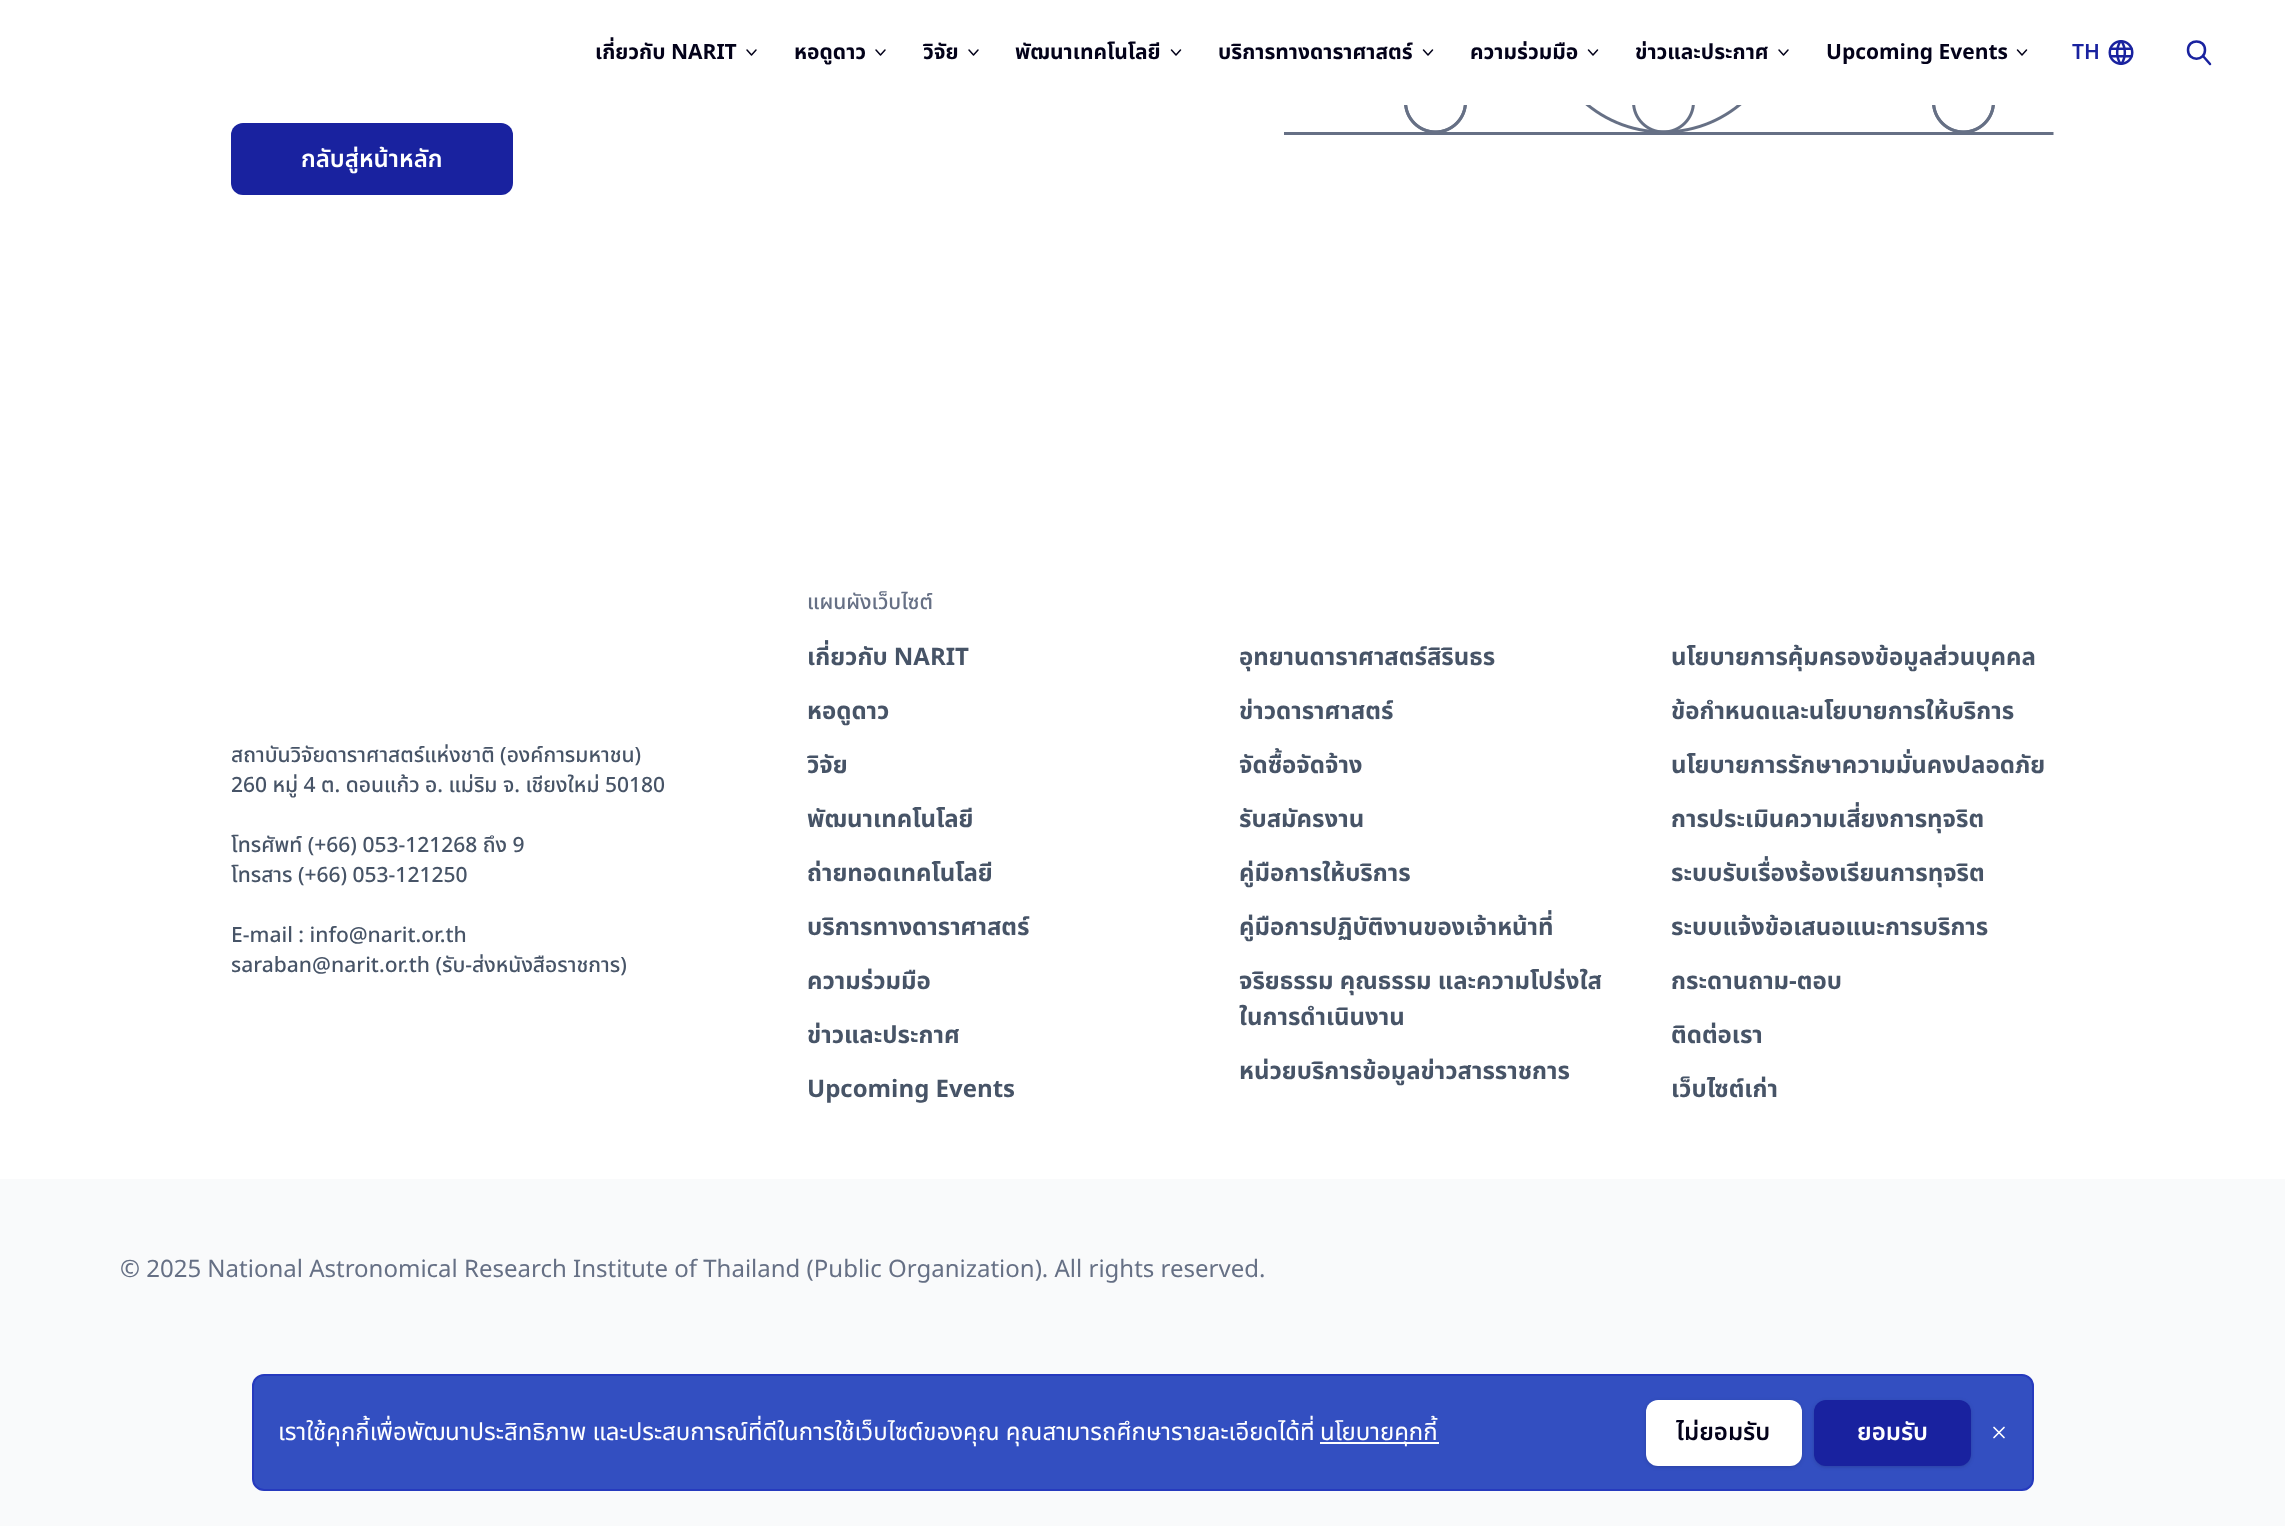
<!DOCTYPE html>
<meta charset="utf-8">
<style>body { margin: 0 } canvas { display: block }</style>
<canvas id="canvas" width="2285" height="1526"></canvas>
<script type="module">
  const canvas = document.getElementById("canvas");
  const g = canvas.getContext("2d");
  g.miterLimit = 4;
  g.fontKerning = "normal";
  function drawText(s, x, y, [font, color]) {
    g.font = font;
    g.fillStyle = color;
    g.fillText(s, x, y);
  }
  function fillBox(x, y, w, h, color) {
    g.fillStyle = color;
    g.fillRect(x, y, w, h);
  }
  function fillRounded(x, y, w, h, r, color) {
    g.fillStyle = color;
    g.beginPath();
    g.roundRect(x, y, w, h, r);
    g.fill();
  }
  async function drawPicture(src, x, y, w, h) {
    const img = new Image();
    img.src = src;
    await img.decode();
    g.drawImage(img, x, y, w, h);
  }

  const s1 = ["bold 21px Noto Sans Thai", "#03021A"];
  const s2 = ["600 21px Noto Sans Thai", "#19229F"];
  const s3 = ["600 24px Noto Sans Thai", "#FFFFFF"];
  const s4 = ["500 21px Noto Sans Thai", "#475467"];
  const s5 = ["500 21px Noto Sans Thai", "#667085"];
  const s6 = ["bold 24px Noto Sans Thai", "#475467"];
  const s7 = ["24px Noto Sans Thai", "#667085"];
  const s8 = ["24px Noto Sans Thai", "#FFFFFF"];
  const s9 = ["600 24px Noto Sans Thai", "#03021A"];

  fillBox(0, 0, 2285, 1526, "#FFFFFF");
  drawText("เกี่ยวกับ NARIT", 595, 59, s1);
  g.beginPath();
  g.moveTo(747, 50);
  g.lineTo(751.5, 55);
  g.lineTo(756, 50);
  g.strokeStyle = "#03021A";
  g.lineWidth = 1.5;
  g.lineCap = "round";
  g.lineJoin = "round";
  g.stroke();
  drawText("หอดูดาว", 794, 59, s1);
  g.beginPath();
  g.moveTo(876, 50);
  g.lineTo(880.5, 55);
  g.lineTo(885, 50);
  g.stroke();
  drawText("วิจัย", 923, 59, s1);
  g.beginPath();
  g.moveTo(969, 50);
  g.lineTo(973.5, 55);
  g.lineTo(978, 50);
  g.stroke();
  drawText("พัฒนาเทคโนโลยี", 1015, 59, s1);
  g.beginPath();
  g.moveTo(1171.5, 50);
  g.lineTo(1176, 55);
  g.lineTo(1180.5, 50);
  g.stroke();
  drawText("บริการทางดาราศาสตร์", 1218, 59, s1);
  g.beginPath();
  g.moveTo(1423.5, 50);
  g.lineTo(1428, 55);
  g.lineTo(1432.5, 50);
  g.stroke();
  drawText("ความร่วมมือ", 1470, 59, s1);
  g.beginPath();
  g.moveTo(1588.5, 50);
  g.lineTo(1593, 55);
  g.lineTo(1597.5, 50);
  g.stroke();
  drawText("ข่าวและประกาศ", 1635, 59, s1);
  g.beginPath();
  g.moveTo(1779, 50);
  g.lineTo(1783.5, 55);
  g.lineTo(1788, 50);
  g.stroke();
  drawText("Upcoming Events", 1826, 59, s1);
  g.beginPath();
  g.moveTo(2017.5, 50);
  g.lineTo(2022, 55);
  g.lineTo(2026.5, 50);
  g.stroke();
  drawText("TH", 2072, 59, s2);
  await drawPicture("pic1.png", 2108, 40, 26, 25);
  g.beginPath();
  g.moveTo(2188, 50);
  g.bezierCurveTo(2188, 61.5, 2205, 61.5, 2205, 50);
  g.bezierCurveTo(2205, 38.5, 2188, 38.5, 2188, 50);
  g.moveTo(2210, 64);
  g.lineTo(2203, 56);
  g.strokeStyle = "#19229F";
  g.lineWidth = 2.5;
  g.stroke();
  await drawPicture("pic2.png", 1284, 105, 770, 30);
  fillRounded(231, 123, 282, 72, 12, "#19229F");
  drawText("กลับสู่หน้าหลัก", 301, 167, s3);
  drawText("สถาบันวิจัยดาราศาสตร์แห่งชาติ (องค์การมหาชน)", 231, 762, s4);
  drawText("260 หมู่ 4 ต. ดอนแก้ว อ. แม่ริม จ. เชียงใหม่ 50180", 231, 792, s4);
  drawText("โทรศัพท์ (+66) 053-121268 ถึง 9", 231, 852, s4);
  drawText("โทรสาร (+66) 053-121250", 231, 882, s4);
  drawText("E-mail : info@narit.or.th", 231, 942, s4);
  drawText("saraban@narit.or.th (รับ-ส่งหนังสือราชการ)", 231, 972, s4);
  drawText("แผนผังเว็บไซต์", 807, 609, s5);
  drawText("เกี่ยวกับ NARIT", 807, 665, s6);
  drawText("หอดูดาว", 807, 719, s6);
  drawText("วิจัย", 807, 773, s6);
  drawText("พัฒนาเทคโนโลยี", 807, 827, s6);
  drawText("ถ่ายทอดเทคโนโลยี", 807, 881, s6);
  drawText("บริการทางดาราศาสตร์", 807, 935, s6);
  drawText("ความร่วมมือ", 807, 989, s6);
  drawText("ข่าวและประกาศ", 807, 1043, s6);
  drawText("Upcoming Events", 807, 1097, s6);
  drawText("อุทยานดาราศาสตร์สิรินธร", 1239, 665, s6);
  drawText("ข่าวดาราศาสตร์", 1239, 719, s6);
  drawText("จัดซื้อจัดจ้าง", 1239, 773, s6);
  drawText("รับสมัครงาน", 1239, 827, s6);
  drawText("คู่มือการให้บริการ", 1239, 881, s6);
  drawText("คู่มือการปฏิบัติงานของเจ้าหน้าที่", 1239, 935, s6);
  drawText("จริยธรรม คุณธรรม และความโปร่งใส", 1239, 989, s6);
  drawText("ในการดําเนินงาน", 1239, 1025, s6);
  drawText("หน่วยบริการข้อมูลข่าวสารราชการ", 1239, 1079, s6);
  drawText("นโยบายการคุ้มครองข้อมูลส่วนบุคคล", 1671, 665, s6);
  drawText("ข้อกำหนดและนโยบายการให้บริการ", 1671, 719, s6);
  drawText("นโยบายการรักษาความมั่นคงปลอดภัย", 1671, 773, s6);
  drawText("การประเมินความเสี่ยงการทุจริต", 1671, 827, s6);
  drawText("ระบบรับเรื่องร้องเรียนการทุจริต", 1671, 881, s6);
  drawText("ระบบแจ้งข้อเสนอแนะการบริการ", 1671, 935, s6);
  drawText("กระดานถาม-ตอบ", 1671, 989, s6);
  drawText("ติดต่อเรา", 1671, 1043, s6);
  drawText("เว็บไซต์เก่า", 1671, 1097, s6);
  fillBox(0, 1179, 2285, 347, "#F9FAFB");
  drawText("© 2025 National Astronomical Research Institute of Thailand (Public Organization). All rights reserved.", 120, 1277, s7);
  g.fillStyle = "#334FC1";
  g.beginPath();
  g.roundRect(253, 1375, 1780, 115, 11);
  g.fill();
  g.strokeStyle = "#263ABE";
  g.lineWidth = 2;
  g.lineJoin = "miter";
  g.stroke();
  drawText("เราใช้คุกกี้เพื่อพัฒนาประสิทธิภาพ และประสบการณ์ที่ดีในการใช้เว็บไซต์ของคุณ คุณสามารถศึกษารายละเอียดได้ที่", 278, 1440, s8);
  fillBox(1320, 1442, 119, 2, "#FFFFFF");
  drawText("นโยบายคุกกี้", 1320, 1440, s8);
  g.fillStyle = "rgba(0, 0, 0, 0.1)";
  g.filter = "blur(1.5px)";
  g.beginPath();
  g.roundRect(1647, 1403, 153, 63, 11);
  g.fill();
  g.filter = "none";
  g.filter = "blur(2px)";
  g.beginPath();
  g.roundRect(1646, 1401, 156, 66, 12);
  g.fill();
  g.filter = "none";
  fillRounded(1646, 1400, 156, 66, 12, "#FFFFFF");
  drawText("ไม่ยอมรับ", 1676, 1440, s9);
  g.fillStyle = "rgba(0, 0, 0, 0.1)";
  g.filter = "blur(1.5px)";
  g.beginPath();
  g.roundRect(1815, 1403, 155, 63, 11);
  g.fill();
  g.filter = "none";
  g.filter = "blur(2px)";
  g.beginPath();
  g.roundRect(1814, 1401, 157, 66, 12);
  g.fill();
  g.filter = "none";
  fillRounded(1814, 1400, 157, 66, 12, "#19229F");
  drawText("ยอมรับ", 1857, 1440, s3);
  g.beginPath();
  g.moveTo(2004, 1427.5);
  g.lineTo(1994, 1437.5);
  g.moveTo(1994, 1427.5);
  g.lineTo(2004, 1437.5);
  g.strokeStyle = "#FFFFFF";
  g.lineWidth = 1.7;
  g.lineJoin = "round";
  g.stroke();
</script>
